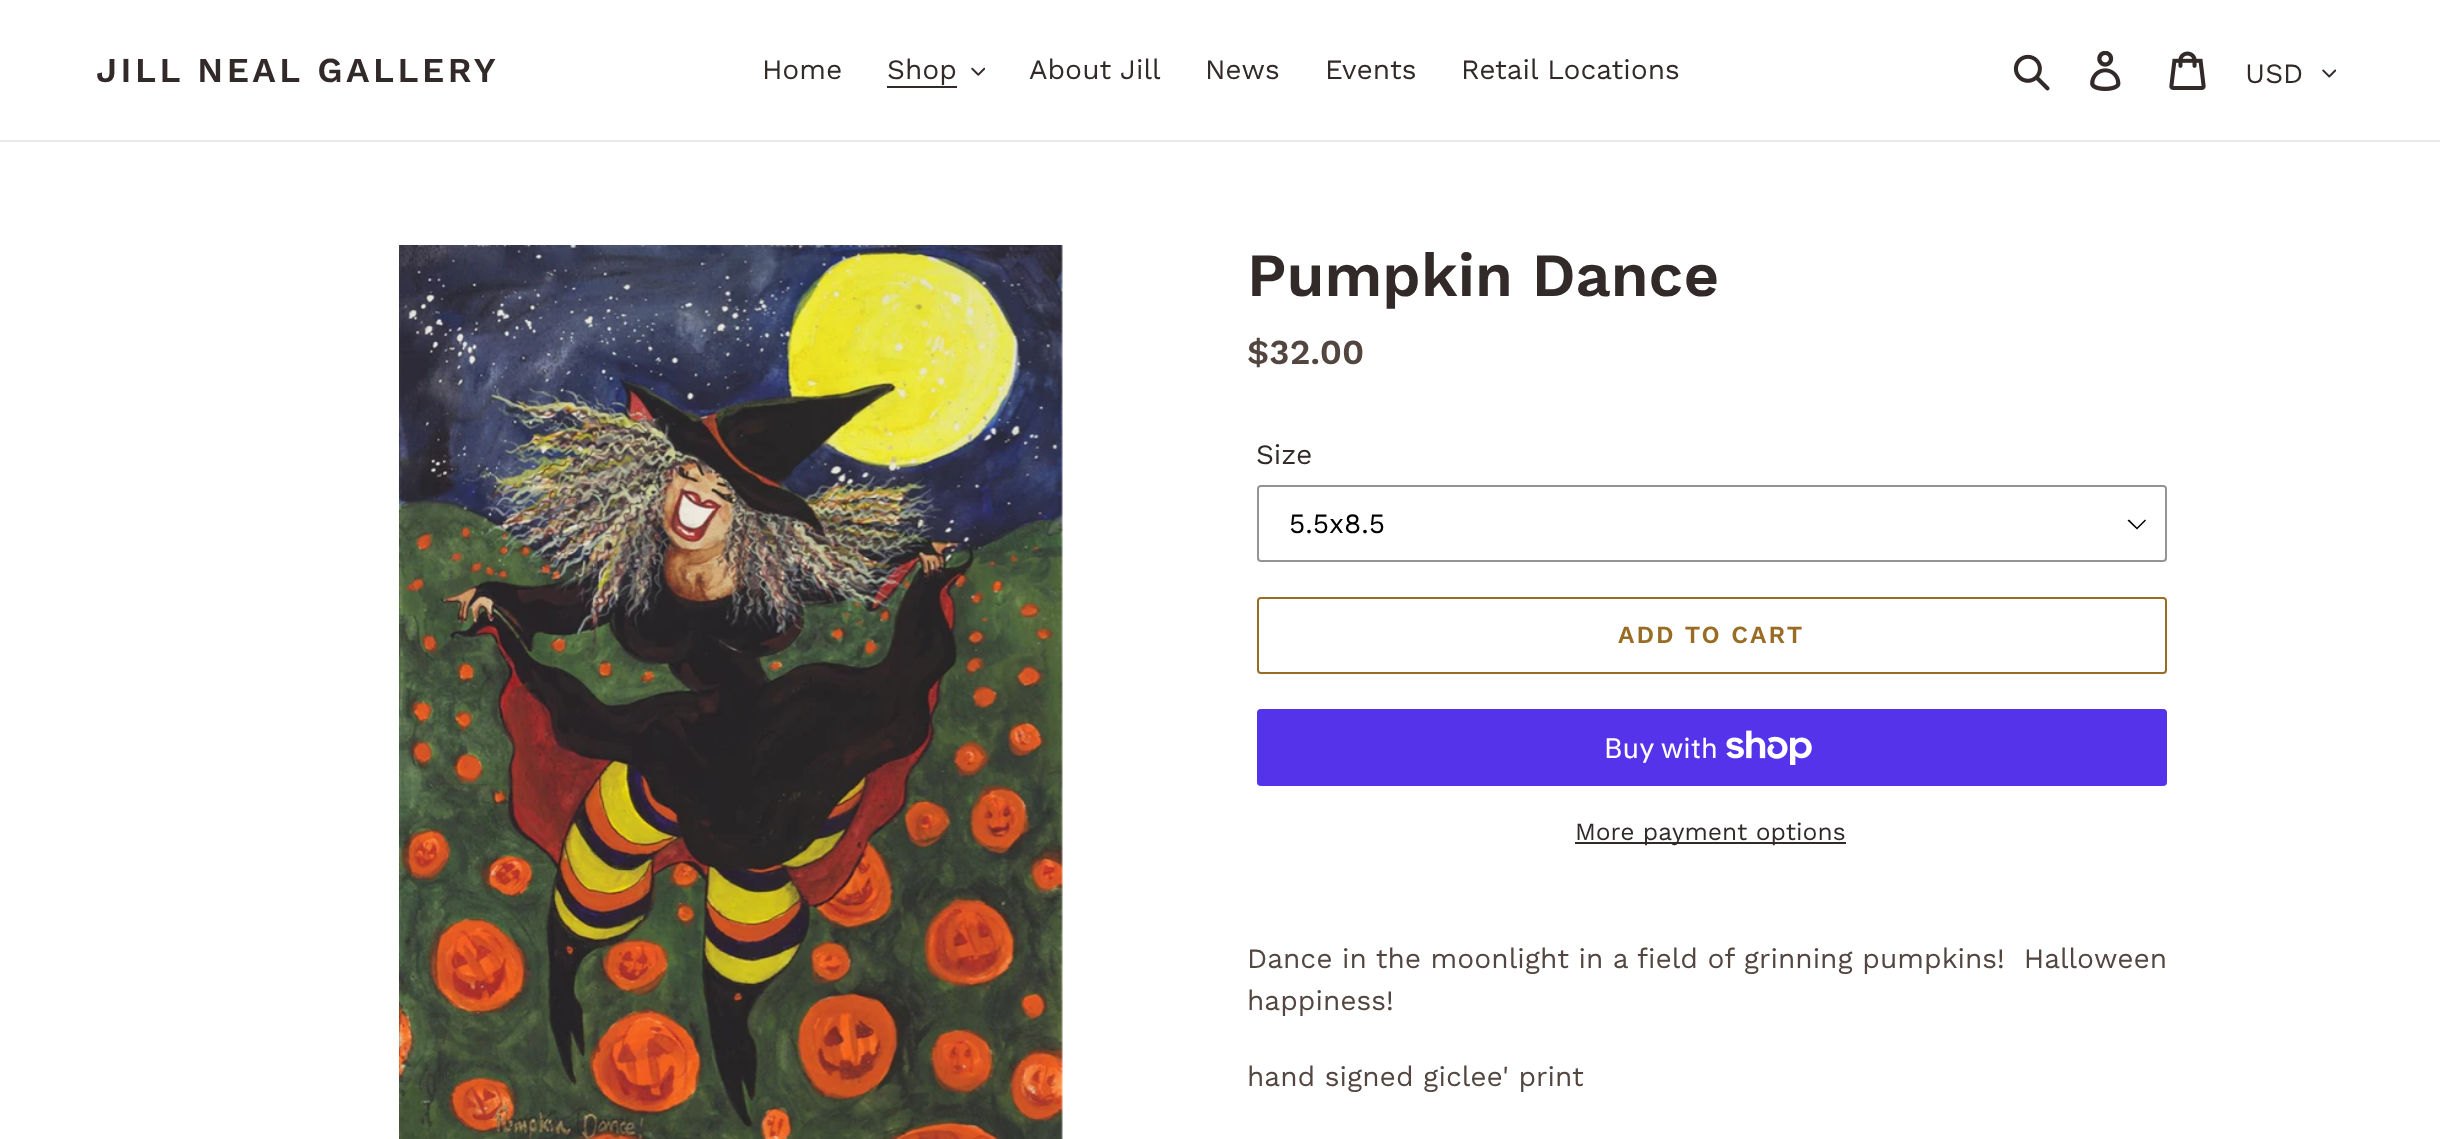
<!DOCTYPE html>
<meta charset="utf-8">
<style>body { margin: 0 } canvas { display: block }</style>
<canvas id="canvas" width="2440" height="1139"></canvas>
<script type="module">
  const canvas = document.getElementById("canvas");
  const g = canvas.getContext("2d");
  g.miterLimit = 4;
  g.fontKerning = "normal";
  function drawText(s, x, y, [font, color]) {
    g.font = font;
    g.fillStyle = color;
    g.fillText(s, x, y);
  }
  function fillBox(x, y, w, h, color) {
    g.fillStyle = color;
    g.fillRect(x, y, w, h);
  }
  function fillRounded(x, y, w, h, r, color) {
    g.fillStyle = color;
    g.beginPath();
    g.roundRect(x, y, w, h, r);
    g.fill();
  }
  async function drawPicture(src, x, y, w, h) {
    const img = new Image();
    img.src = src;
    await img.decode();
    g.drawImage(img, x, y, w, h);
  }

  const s1 = ["600 35px Work Sans", "#322929"];
  const s2 = ["28px Work Sans", "#322929"];
  const s3 = ["600 61.25px Work Sans", "#322929"];
  const s4 = ["600 35px Work Sans", "#534640"];
  const s5 = ["28px Work Sans", "#000000"];
  const s6 = ["600 24.5px Work Sans", "#996C24"];
  const s7 = ["28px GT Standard", "#FFFFFF"];
  const s8 = ["24.5px Work Sans", "#322929"];
  const s9 = ["28px Work Sans", "#534640"];

  fillBox(0, 0, 2440, 1139, "#FFFFFF");
  fillBox(0, 140, 2440, 2, "#E8E9EB");
  g.letterSpacing = "3.5px";
  drawText("JILL NEAL GALLERY", 96, 82, s1);
  g.letterSpacing = "0px";
  drawText("Home", 762, 79, s2);
  drawText("Shop", 887, 79, s2);
  fillBox(887, 86, 70, 2, "#322929");
  await drawPicture("pic1.png", 971, 67, 14, 9);
  drawText("About Jill", 1029, 79, s2);
  drawText("News", 1205, 79, s2);
  drawText("Events", 1325, 79, s2);
  drawText("Retail Locations", 1461, 79, s2);
  await drawPicture("pic2.png", 2013, 54, 37, 37);
  await drawPicture("pic3.png", 2090, 51, 31, 40);
  await drawPicture("pic4.png", 2169, 51, 37, 39);
  drawText("USD", 2245, 83, s2);
  await drawPicture("pic5.png", 2322, 69, 14, 9);
  await drawPicture("pic6.png", 399, 245, 664, 894);
  drawText("Pumpkin Dance", 1247, 296, s3);
  drawText("$32.00", 1247, 364, s4);
  drawText("Size", 1256, 464, s2);
  g.fillStyle = "#000000";
  g.beginPath();
  g.moveTo(2137, 529.5);
  g.lineTo(2127.5, 520.5);
  g.lineTo(2129, 519.5);
  g.lineTo(2137, 527.5);
  g.lineTo(2145, 519.5);
  g.lineTo(2146, 520.5);
  g.closePath();
  g.fill();
  g.beginPath();
  g.roundRect(1258, 486, 908, 75, 3);
  g.strokeStyle = "#949494";
  g.lineWidth = 2;
  g.stroke();
  drawText("5.5x8.5", 1289, 533, s5);
  g.beginPath();
  g.roundRect(1258, 598, 908, 75, 3);
  g.strokeStyle = "#996C24";
  g.stroke();
  g.letterSpacing = "2px";
  drawText("ADD TO CART", 1618, 643, s6);
  fillRounded(1257, 709, 910, 77, 4, "#5433EB");
  g.letterSpacing = "0px";
  drawText("Buy with", 1604, 758, s7);
  await drawPicture("pic7.png", 1726, 730, 86, 35);
  fillBox(1575, 842, 271, 2, "#322929");
  drawText("More payment options", 1575, 840, s8);
  drawText("Dance in the moonlight in a field of grinning pumpkins!  Halloween", 1247, 968, s9);
  drawText("happiness!", 1247, 1010, s9);
  drawText("hand signed giclee' print", 1247, 1086, s9);
</script>
